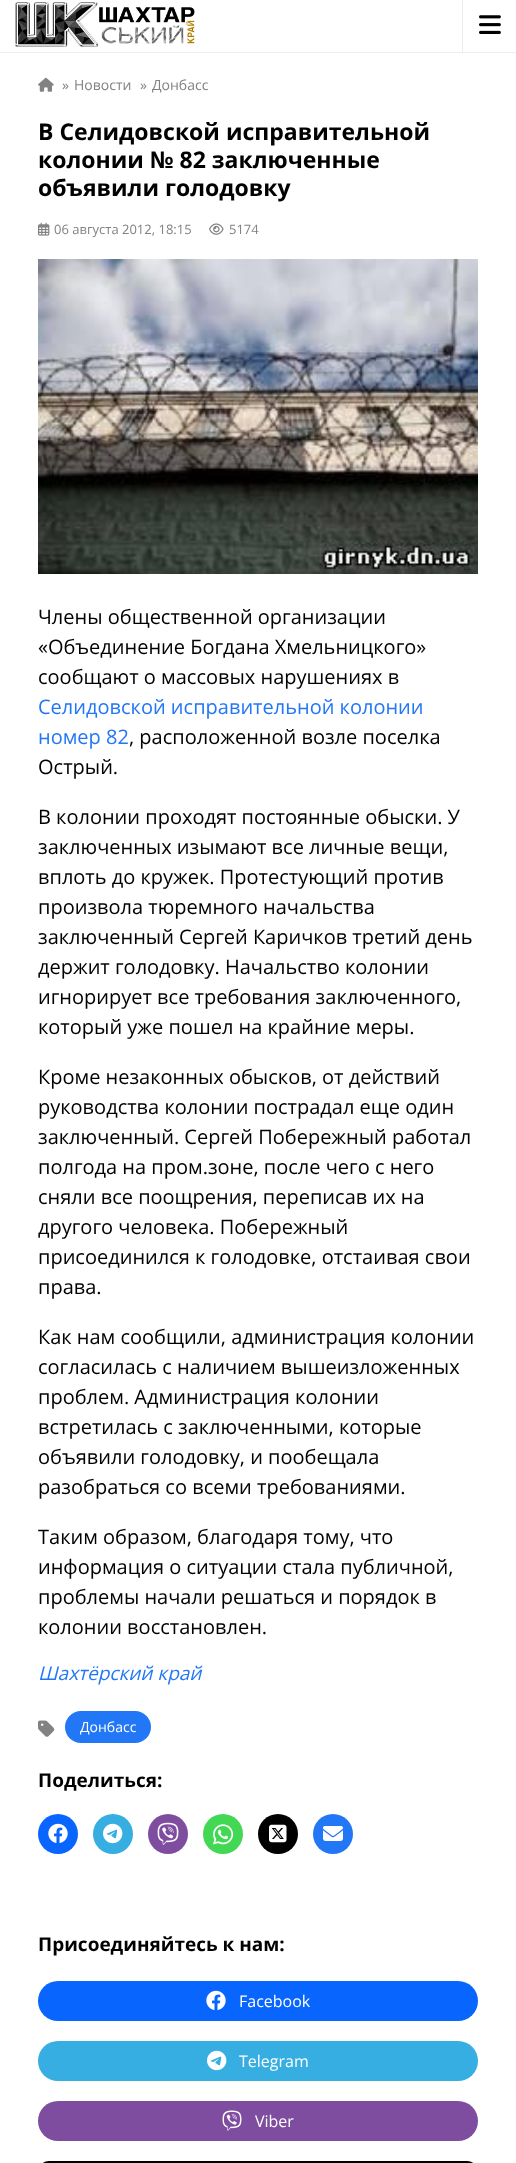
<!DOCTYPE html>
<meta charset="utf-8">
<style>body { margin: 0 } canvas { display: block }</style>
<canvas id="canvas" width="516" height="2163"></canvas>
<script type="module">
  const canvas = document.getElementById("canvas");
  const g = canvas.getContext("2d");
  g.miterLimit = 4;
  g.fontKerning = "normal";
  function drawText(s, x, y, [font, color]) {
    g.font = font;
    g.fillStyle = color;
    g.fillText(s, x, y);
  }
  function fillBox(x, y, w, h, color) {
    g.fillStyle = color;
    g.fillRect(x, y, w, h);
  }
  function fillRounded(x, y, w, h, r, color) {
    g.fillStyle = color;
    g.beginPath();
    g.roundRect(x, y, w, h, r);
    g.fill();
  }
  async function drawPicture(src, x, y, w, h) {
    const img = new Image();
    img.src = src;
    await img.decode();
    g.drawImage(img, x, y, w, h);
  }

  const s1 = ["14px Open Sans", "#828282"];
  const s2 = ["bold 23px Open Sans", "#000000"];
  const s3 = ["13px Open Sans", "#828282"];
  const s4 = ["20px Open Sans", "#000000"];
  const s5 = ["20px Open Sans", "#2277F6"];
  const s6 = ["italic 19px Open Sans", "#2277F6"];
  const s7 = ["14px Open Sans", "#FFFFFF"];
  const s8 = ["bold 19px Open Sans", "#000000"];
  const s9 = ["16px Open Sans", "#FFFFFF"];

  fillBox(0, 0, 516, 2163, "#FFFFFF");
  fillBox(0, 52, 516, 1, "#EDEDED");
  await drawPicture("pic1.png", 15, 2, 180, 45);
  fillBox(462, 0, 1, 52, "#EDEDED");
  await drawPicture("pic2.png", 479, 15, 22, 19);
  await drawPicture("pic3.png", 38, 77, 16, 15);
  drawText("»", 62, 90, s1);
  drawText("Новости", 74, 90, s1);
  drawText("»", 140, 90, s1);
  drawText("Донбасс", 152, 90, s1);
  drawText("В Селидовской исправительной", 38, 140, s2);
  drawText("колонии № 82 заключенные", 38, 168, s2);
  drawText("объявили голодовку", 38, 196, s2);
  await drawPicture("pic4.png", 38, 222, 12, 14);
  drawText("06 августа 2012, 18:15", 54, 234, s3);
  await drawPicture("pic5.png", 209, 223, 15, 12);
  drawText("5174", 229, 234, s3);
  await drawPicture("pic6.png", 38, 259, 440, 315);
  drawText("Члены общественной организации", 38, 624, s4);
  drawText("«Объединение Богдана Хмельницкого»", 38, 654, s4);
  drawText("сообщают о массовых нарушениях в", 38, 684, s4);
  drawText("Селидовской исправительной колонии", 38, 714, s5);
  drawText("номер 82", 38, 744, s5);
  drawText(", расположенной возле поселка", 129, 744, s4);
  drawText("Острый.", 38, 774, s4);
  drawText("В колонии проходят постоянные обыски. У", 38, 824, s4);
  drawText("заключенных изымают все личные вещи,", 38, 854, s4);
  drawText("вплоть до кружек. Протестующий против", 38, 884, s4);
  drawText("произвола тюремного начальства", 38, 914, s4);
  drawText("заключенный Сергей Каричков третий день", 38, 944, s4);
  drawText("держит голодовку. Начальство колонии", 38, 974, s4);
  drawText("игнорирует все требования заключенного,", 38, 1004, s4);
  drawText("который уже пошел на крайние меры.", 38, 1034, s4);
  drawText("Кроме незаконных обысков, от действий", 38, 1084, s4);
  drawText("руководства колонии пострадал еще один", 38, 1114, s4);
  drawText("заключенный. Сергей Побережный работал", 38, 1144, s4);
  drawText("полгода на пром.зоне, после чего с него", 38, 1174, s4);
  drawText("сняли все поощрения, переписав их на", 38, 1204, s4);
  drawText("другого человека. Побережный", 38, 1234, s4);
  drawText("присоединился к голодовке, отстаивая свои", 38, 1264, s4);
  drawText("права.", 38, 1294, s4);
  drawText("Как нам сообщили, администрация колонии", 38, 1344, s4);
  drawText("согласилась с наличием вышеизложенных", 38, 1374, s4);
  drawText("проблем. Администрация колонии", 38, 1404, s4);
  drawText("встретилась с заключенными, которые", 38, 1434, s4);
  drawText("объявили голодовку, и пообещала", 38, 1464, s4);
  drawText("разобраться со всеми требованиями.", 38, 1494, s4);
  drawText("Таким образом, благодаря тому, что", 38, 1544, s4);
  drawText("информация о ситуации стала публичной,", 38, 1574, s4);
  drawText("проблемы начали решаться и порядок в", 38, 1604, s4);
  drawText("колонии восстановлен.", 38, 1634, s4);
  drawText("Шахтёрский край", 38, 1680, s6);
  await drawPicture("pic7.png", 38, 1720, 17, 17);
  fillRounded(65, 1711, 86, 32, 16, "#2277F6");
  drawText("Донбасс", 80, 1732, s7);
  drawText("Поделиться:", 38, 1787, s8);
  g.fillStyle = "#0866FF";
  g.beginPath();
  g.arc(58, 1834, 20, 0, Math.PI * 2);
  g.fill();
  await drawPicture("pic8.png", 48, 1823, 20, 20);
  g.fillStyle = "#37AEE2";
  g.beginPath();
  g.arc(113, 1834, 20, 0, Math.PI * 2);
  g.fill();
  await drawPicture("pic9.png", 103, 1823, 20, 21);
  g.fillStyle = "#7F4DA0";
  g.beginPath();
  g.arc(168, 1834, 20, 0, Math.PI * 2);
  g.fill();
  await drawPicture("pic10.png", 157, 1822, 22, 23);
  g.fillStyle = "#43D854";
  g.beginPath();
  g.arc(223, 1834, 20, 0, Math.PI * 2);
  g.fill();
  await drawPicture("pic11.png", 213, 1824, 21, 21);
  g.fillStyle = "#000000";
  g.beginPath();
  g.arc(278, 1834, 20, 0, Math.PI * 2);
  g.fill();
  await drawPicture("pic12.png", 269, 1824, 18, 19);
  g.fillStyle = "#2277F6";
  g.beginPath();
  g.arc(333, 1834, 20, 0, Math.PI * 2);
  g.fill();
  await drawPicture("pic13.png", 323, 1826, 20, 15);
  drawText("Присоединяйтесь к нам:", 38, 1951, s8);
  fillRounded(38, 1981, 440, 40, 20, "#0866FF");
  await drawPicture("pic8.png", 206, 1990, 20, 20);
  drawText("Facebook", 239, 2007, s9);
  fillRounded(38, 2041, 440, 40, 20, "#37AEE2");
  await drawPicture("pic9.png", 207, 2050, 20, 21);
  drawText("Telegram", 239, 2067, s9);
  fillRounded(38, 2101, 440, 40, 20, "#7F4DA0");
  await drawPicture("pic14.png", 222, 2110, 20, 21);
  drawText("Viber", 255, 2127, s9);
  fillRounded(38, 2161, 440, 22, 20, "#000000");
</script>
